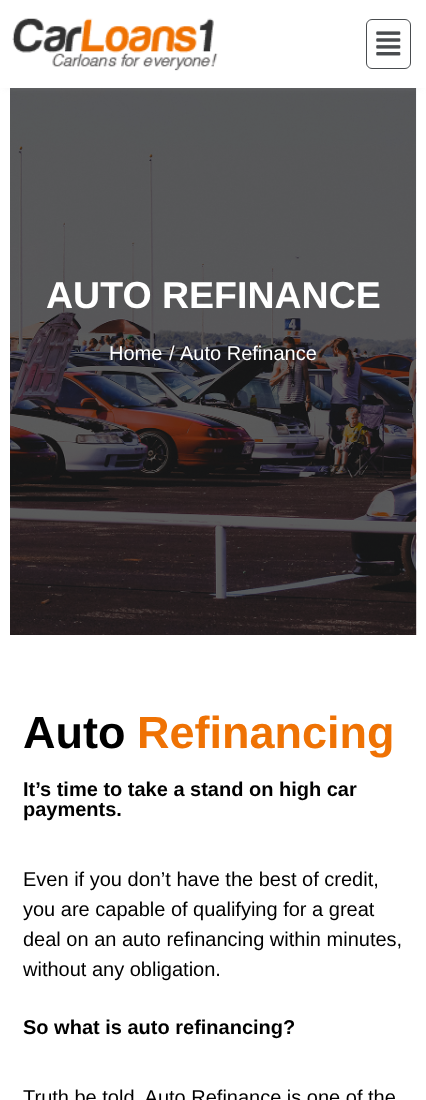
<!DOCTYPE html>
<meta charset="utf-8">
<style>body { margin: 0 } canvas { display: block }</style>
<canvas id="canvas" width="426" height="1100"></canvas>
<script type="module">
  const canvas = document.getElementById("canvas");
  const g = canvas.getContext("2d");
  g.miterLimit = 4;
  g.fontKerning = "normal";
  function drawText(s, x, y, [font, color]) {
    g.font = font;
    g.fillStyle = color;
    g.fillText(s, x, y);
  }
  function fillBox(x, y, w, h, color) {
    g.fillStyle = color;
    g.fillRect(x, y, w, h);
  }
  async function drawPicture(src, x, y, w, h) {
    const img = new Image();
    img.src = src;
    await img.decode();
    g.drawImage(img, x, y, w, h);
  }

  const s1 = ["bold 37.5px Liberation Sans", "#FFFFFF"];
  const s2 = ["20px Liberation Sans", "#FFFFFF"];
  const s3 = ["bold 45px Liberation Sans", "#000000"];
  const s4 = ["bold 45px Liberation Sans", "#EF7204"];
  const s5 = ["bold 20px Liberation Sans", "#000000"];
  const s6 = ["20px Liberation Sans", "#000000"];

  fillBox(0, 0, 426, 1100, "#FFFFFF");
  await drawPicture("pic3.png", 10, 88, 407, 547);
  g.fillStyle = "#AAAAAA";
  g.filter = "blur(6px)";
  g.beginPath();
  g.rect(6, 6, 414, 75);
  g.fill();
  g.filter = "none";
  fillBox(0, 0, 426, 88, "#FFFFFF");
  await drawPicture("pic1.png", 12, 18, 206, 53);
  g.beginPath();
  g.roundRect(366.5, 19.5, 44, 49, 5.5);
  g.strokeStyle = "#494C4F";
  g.stroke();
  await drawPicture("pic2.png", 376, 31, 25, 25);
  drawText("AUTO REFINANCE", 46, 308, s1);
  drawText("Home", 109, 360, s2);
  drawText("/", 169, 360, s2);
  drawText("Auto Refinance", 180, 360, s2);
  drawText("Auto", 23, 748, s3);
  drawText("Refinancing", 137, 748, s4);
  drawText("It’s time to take a stand on high car", 23, 796, s5);
  drawText("payments.", 23, 816, s5);
  drawText("Even if you don’t have the best of credit,", 23, 886, s6);
  drawText("you are capable of qualifying for a great", 23, 916, s6);
  drawText("deal on an auto refinancing within minutes,", 23, 946, s6);
  drawText("without any obligation.", 23, 976, s6);
  drawText("So what is auto refinancing?", 23, 1034, s5);
  drawText("Truth be told, Auto Refinance is one of the", 23, 1104, s6);
</script>
